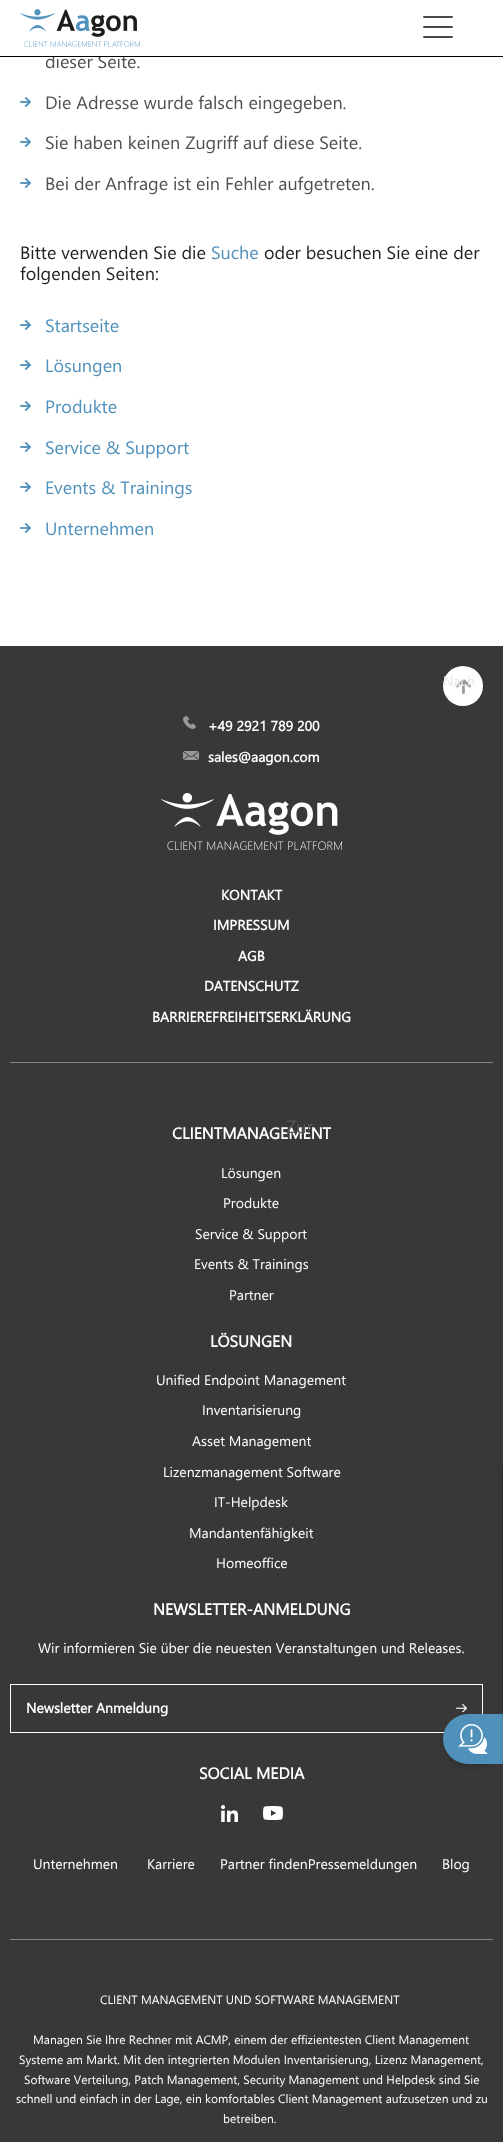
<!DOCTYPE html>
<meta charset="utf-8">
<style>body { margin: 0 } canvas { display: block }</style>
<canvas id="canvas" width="503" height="2142"></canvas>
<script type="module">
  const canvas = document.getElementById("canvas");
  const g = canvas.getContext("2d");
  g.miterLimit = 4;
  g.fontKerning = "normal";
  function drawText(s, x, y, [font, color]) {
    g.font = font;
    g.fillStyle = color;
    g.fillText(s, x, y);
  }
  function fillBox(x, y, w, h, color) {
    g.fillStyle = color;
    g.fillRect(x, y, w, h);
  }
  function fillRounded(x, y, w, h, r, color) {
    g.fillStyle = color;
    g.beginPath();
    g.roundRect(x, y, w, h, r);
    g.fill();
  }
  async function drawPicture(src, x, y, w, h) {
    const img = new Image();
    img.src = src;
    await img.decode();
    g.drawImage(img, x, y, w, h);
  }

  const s1 = ["18px Segoe UI", "#4E5053"];
  const s2 = ["18px Segoe UI", "#231F20"];
  const s3 = ["18px Segoe UI", "#5091BB"];
  const s4 = ["14px Segoe UI", "#E8E8E8"];
  const s5 = ["bold 14px Segoe UI", "#FFFFFF"];
  const s6 = ["bold 16px Segoe UI", "#FFFFFF"];
  const s7 = ["14px Segoe UI", "#FFFFFF"];
  const s8 = ["12px Segoe UI", "#FFFFFF"];
  const s9 = ["18px Segoe UI", "#585858"];

  fillBox(0, 0, 503, 2142, "#FFFFFF");
  drawText("dieser Seite.", 45, 68, s1);
  fillBox(52, 54, 68, 2, "#FFFFFF");
  fillBox(0, 56, 503, 1, "#000000");
  await drawPicture("pic1.png", 20, 9, 120, 38);
  fillRounded(423, 26, 30, 2, 1, "#494949");
  fillRounded(423, 16, 30, 2, 1, "#494949");
  fillRounded(423, 36, 30, 2, 1, "#494949");
  await drawPicture("pic2.png", 20, 97, 11, 10);
  drawText("Die Adresse wurde falsch eingegeben.", 45, 109, s1);
  await drawPicture("pic2.png", 20, 137, 11, 10);
  drawText("Sie haben keinen Zugriff auf diese Seite.", 45, 149, s1);
  await drawPicture("pic2.png", 20, 178, 11, 10);
  drawText("Bei der Anfrage ist ein Fehler aufgetreten.", 45, 190, s1);
  drawText("Bitte verwenden Sie die", 20, 259, s2);
  drawText("Suche", 211, 259, s3);
  drawText("oder besuchen Sie eine der", 264, 259, s2);
  drawText("folgenden Seiten:", 20, 280, s2);
  await drawPicture("pic2.png", 20, 320, 11, 10);
  drawText("Startseite", 45, 332, s3);
  await drawPicture("pic2.png", 20, 360, 11, 10);
  drawText("Lösungen", 45, 372, s3);
  await drawPicture("pic2.png", 20, 401, 11, 10);
  drawText("Produkte", 45, 413, s3);
  await drawPicture("pic2.png", 20, 442, 11, 10);
  drawText("Service & Support", 45, 454, s3);
  await drawPicture("pic2.png", 20, 482, 11, 10);
  drawText("Events & Trainings", 45, 494, s3);
  await drawPicture("pic2.png", 20, 523, 11, 10);
  drawText("Unternehmen", 45, 535, s3);
  fillBox(0, 646, 503, 1496, "#383838");
  g.fillStyle = "#FFFFFF";
  g.beginPath();
  g.arc(463, 686, 20, 0, Math.PI * 2);
  g.fill();
  await drawPicture("pic3.png", 456, 679, 15, 15);
  drawText("Nach", 443, 686, s4);
  await drawPicture("pic4.png", 183, 716, 13, 13);
  drawText("+49 2921 789 200", 208, 731, s5);
  await drawPicture("pic5.png", 183, 751, 16, 9);
  drawText("sales@aagon.com", 208, 762, s5);
  await drawPicture("pic6.png", 161, 793, 181, 57);
  drawText("KONTAKT", 221, 900, s5);
  drawText("IMPRESSUM", 213, 930, s5);
  drawText("AGB", 238, 961, s5);
  drawText("DATENSCHUTZ", 204, 991, s5);
  drawText("BARRIEREFREIHEITSERKLÄRUNG", 152, 1022, s5);
  fillBox(10, 1062, 483, 1, "#828589");
  fillBox(10, 1939, 483, 1, "#828589");
  drawText("CLIENTMANAGEMENT", 172, 1139, s6);
  drawText("Lösungen", 221, 1178, s7);
  drawText("Produkte", 223, 1208, s7);
  drawText("Service & Support", 195, 1239, s7);
  drawText("Events & Trainings", 194, 1269, s7);
  drawText("Partner", 229, 1300, s7);
  drawText("LÖSUNGEN", 210, 1347, s6);
  drawText("Unified Endpoint Management", 156, 1385, s7);
  drawText("Inventarisierung", 202, 1415, s7);
  drawText("Asset Management", 192, 1446, s7);
  drawText("Lizenzmanagement Software", 163, 1477, s7);
  drawText("IT-Helpdesk", 214, 1507, s7);
  drawText("Mandantenfähigkeit", 189, 1538, s7);
  drawText("Homeoffice", 216, 1568, s7);
  drawText("NEWSLETTER-ANMELDUNG", 153, 1615, s6);
  drawText("Wir informieren Sie über die neuesten Veranstaltungen und Releases.", 38, 1653, s7);
  g.strokeStyle = "#FFFFFF";
  g.strokeRect(10.5, 1684.5, 472, 48);
  drawText("Newsletter Anmeldung", 26, 1713, s5);
  await drawPicture("pic7.png", 456, 1704, 11, 8);
  drawText("SOCIAL MEDIA", 199, 1779, s6);
  await drawPicture("pic8.png", 221, 1805, 17, 17);
  await drawPicture("pic9.png", 263, 1806, 20, 14);
  drawText("Unternehmen", 33, 1869, s7);
  drawText("Karriere", 147, 1869, s7);
  drawText("Partner findenPressemeldungen", 220, 1869, s7);
  drawText("Blog", 442, 1869, s7);
  drawText("CLIENT MANAGEMENT UND SOFTWARE MANAGEMENT", 100, 2004, s8);
  drawText("Managen Sie Ihre Rechner mit ACMP, einem der effizientesten Client Management", 33, 2044, s8);
  drawText("Systeme am Markt. Mit den integrierten Modulen Inventarisierung, Lizenz Management,", 19, 2064, s8);
  drawText("Software Verteilung, Patch Management, Security Management und Helpdesk sind Sie", 24, 2084, s8);
  drawText("schnell und einfach in der Lage, ein komfortables Client Management aufzusetzen und zu", 16, 2103, s8);
  drawText("betreiben.", 223, 2123, s8);
  drawText("Zur", 286, 1133, s9);
  g.fillStyle = "rgba(0, 0, 0, 0.15)";
  g.filter = "blur(2.5px)";
  g.beginPath();
  g.roundRect(443, 1717, 60, 50, 25);
  g.fill();
  g.filter = "none";
  g.fillStyle = "#5091BB";
  g.beginPath();
  g.roundRect(443, 1714, 60, 50, [25, 0, 0, 25]);
  g.fill();
  g.fillStyle = "rgba(0, 0, 0, 0.15)";
  g.filter = "blur(2.5px)";
  g.beginPath();
  g.rect(503, 1464, 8, 303);
  g.fill();
  g.filter = "none";
  await drawPicture("pic10.png", 458, 1724, 30, 30);
</script>
